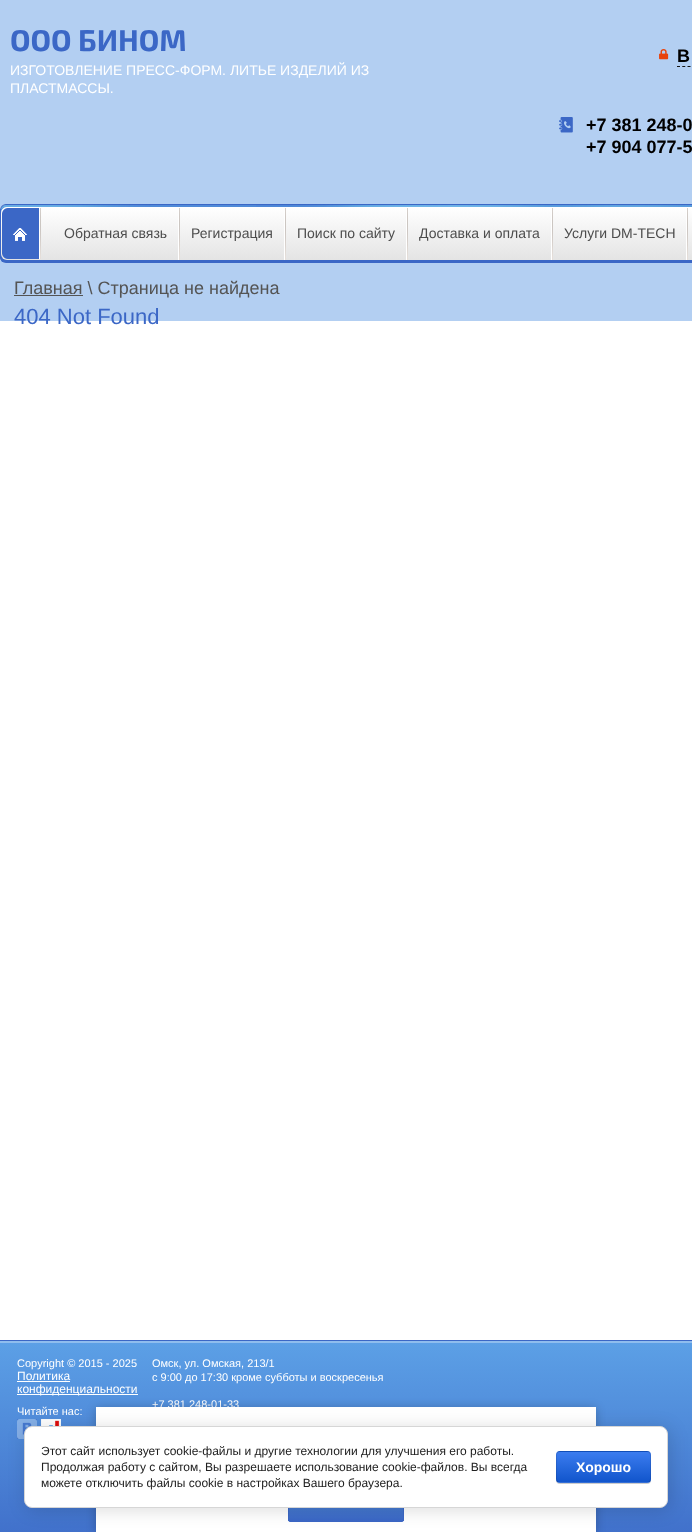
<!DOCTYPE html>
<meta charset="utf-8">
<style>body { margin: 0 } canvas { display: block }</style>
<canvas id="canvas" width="692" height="1532"></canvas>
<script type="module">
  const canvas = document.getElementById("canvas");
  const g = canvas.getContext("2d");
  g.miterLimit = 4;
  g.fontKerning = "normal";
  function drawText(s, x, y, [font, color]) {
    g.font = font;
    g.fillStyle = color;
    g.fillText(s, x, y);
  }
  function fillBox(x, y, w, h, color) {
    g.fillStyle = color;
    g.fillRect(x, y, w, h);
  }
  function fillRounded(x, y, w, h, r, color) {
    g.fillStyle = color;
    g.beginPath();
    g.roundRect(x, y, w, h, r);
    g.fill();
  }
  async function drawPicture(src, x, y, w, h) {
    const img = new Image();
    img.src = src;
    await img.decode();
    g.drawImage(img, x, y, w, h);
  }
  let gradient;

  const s1 = ["bold 30px 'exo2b'", "#3B67C6"];
  const s2 = ["14px Liberation Sans", "#FFFFFF"];
  const s3 = ["bold 18px Liberation Sans", "#000000"];
  const s4 = ["14px Liberation Sans", "#4D4D4D"];
  const s5 = ["18px Liberation Sans", "#545454"];
  const s6 = ["22px Liberation Sans", "#3B67C6"];
  const s7 = ["11px Liberation Sans", "#FFFFFF"];
  const s8 = ["12px Liberation Sans", "#FFFFFF"];
  const s9 = ["12px Liberation Sans", "#212121"];
  const s10 = ["bold 14px Liberation Sans", "#FFFFFF"];

  fillBox(0, 0, 692, 1532, "#FFFFFF");
  fillBox(0, 0, 692, 321, "#B3CFF2");
  drawText("ООО БИНОМ", 10, 51, s1);
  drawText("ИЗГОТОВЛЕНИЕ ПРЕСС-ФОРМ. ЛИТЬЕ ИЗДЕЛИЙ ИЗ", 10, 75, s2);
  drawText("ПЛАСТМАССЫ.", 10, 93, s2);
  await drawPicture("pic1.png", 659, 49, 10, 11);
  drawText("В", 677, 62, s3);
  g.beginPath();
  g.moveTo(677, 66.5);
  g.lineTo(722, 66.5);
  g.strokeStyle = "#131313";
  g.setLineDash([3, 2.25]);
  g.stroke();
  await drawPicture("pic2.png", 559, 117, 14, 16);
  drawText("+7 381 248-0", 586, 131, s3);
  drawText("+7 904 077-5", 586, 153, s3);
  fillRounded(0, 204, 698, 59, 6, "#3B67C6");
  await drawPicture("pic3.png", 0, 204, 692, 58);
  gradient = g.createLinearGradient(490, 207, 490, 260);
  gradient.addColorStop(0, "#FFFFFF");
  gradient.addColorStop(1, "#E4E4E4");
  g.fillStyle = gradient;
  g.beginPath();
  g.roundRect(1, 207, 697, 53, 6);
  g.fill();
  g.fillStyle = "rgba(255, 255, 255, 0.75)";
  g.beginPath();
  g.moveTo(7, 208);
  g.lineTo(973, 208);
  g.bezierCurveTo(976, 208, 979, 211, 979, 214);
  g.lineTo(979, 213);
  g.bezierCurveTo(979, 210, 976, 207, 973, 207);
  g.lineTo(7, 207);
  g.bezierCurveTo(4, 207, 1, 210, 1, 213);
  g.lineTo(1, 214);
  g.bezierCurveTo(1, 211, 4, 208, 7, 208);
  g.closePath();
  g.fill();
  await drawPicture("pic4.png", 39, 208, 2, 51);
  await drawPicture("pic5.png", 2, 208, 37, 51);
  await drawPicture("pic6.png", 178, 208, 2, 52);
  drawText("Обратная связь", 64, 238, s4);
  await drawPicture("pic6.png", 284, 208, 2, 52);
  drawText("Регистрация", 191, 238, s4);
  await drawPicture("pic6.png", 406, 208, 2, 52);
  drawText("Поиск по сайту", 297, 238, s4);
  await drawPicture("pic6.png", 551, 208, 2, 52);
  drawText("Доставка и оплата", 419, 238, s4);
  await drawPicture("pic6.png", 686, 208, 2, 52);
  drawText("Услуги DM-TECH", 564, 238, s4);
  fillBox(14, 295, 69, 1, "#545454");
  drawText("Главная \\ Страница не найдена", 14, 294, s5);
  drawText("404 Not Found", 14, 324, s6);
  gradient = g.createLinearGradient(490, 1341, 490, 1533);
  gradient.addColorStop(0, "#5CA0E6");
  gradient.addColorStop(1, "#4171CB");
  g.fillStyle = gradient;
  g.fillRect(0, 1343, 692, 189);
  fillBox(0, 1341, 692, 2, "#8FBDEE");
  fillBox(0, 1340, 692, 1, "#3B67C5");
  drawText("Copyright © 2015 - 2025", 17, 1367, s7);
  drawText("Политика", 17, 1380, s8);
  fillBox(17, 1381, 53, 1, "#FFFFFF");
  fillBox(17, 1394, 121, 1, "#FFFFFF");
  drawText("конфиденциальности", 17, 1393, s8);
  drawText("Читайте нас:", 17, 1415, s7);
  await drawPicture("pic7.png", 17, 1419, 20, 20);
  await drawPicture("pic8.png", 41, 1419, 20, 7);
  drawText("Омск, ул. Омская, 213/1", 152, 1367, s7);
  drawText("с 9:00 до 17:30 кроме субботы и воскресенья", 152, 1381, s7);
  drawText("+7 381 248-01-33", 152, 1408, s7);
  g.fillStyle = "rgba(0, 0, 0, 0.23)";
  g.filter = "blur(5px)";
  g.beginPath();
  g.rect(96, 1408, 500, 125);
  g.fill();
  g.filter = "none";
  fillBox(96, 1407, 500, 125, "#FFFFFF");
  gradient = g.createLinearGradient(346, 1485, 346, 1521);
  gradient.addColorStop(0, "#5798E1");
  gradient.addColorStop(1, "#3B67C6");
  g.fillStyle = gradient;
  g.fillRect(288, 1508, 116, 13);
  g.beginPath();
  g.roundRect(288.5, 1484.5, 115, 37, 1.5);
  g.strokeStyle = "#3B67C5";
  g.setLineDash([]);
  g.stroke();
  g.fillStyle = "rgba(0, 0, 0, 0.14)";
  g.filter = "blur(9px)";
  g.beginPath();
  g.roundRect(26, 1428, 644, 82, 8);
  g.fill();
  g.filter = "none";
  g.fillStyle = "#FFFFFF";
  g.beginPath();
  g.roundRect(24.5, 1426.5, 643, 81, 7.5);
  g.fill();
  g.strokeStyle = "#D6D6D6";
  g.stroke();
  drawText("Этот сайт использует cookie-файлы и другие технологии для улучшения его работы.", 41, 1455, s9);
  drawText("Продолжая работу с сайтом, Вы разрешаете использование cookie-файлов. Вы всегда", 41, 1471, s9);
  drawText("можете отключить файлы cookie в настройках Вашего браузера.", 41, 1487, s9);
  g.fillStyle = "rgba(0, 0, 0, 0.2)";
  g.filter = "blur(0.5px)";
  g.beginPath();
  g.roundRect(556, 1452, 95, 32, 4);
  g.fill();
  g.filter = "none";
  g.save();
  g.beginPath();
  g.roundRect(556, 1451, 95, 32, 4);
  g.clip();
  gradient = g.createLinearGradient(604, 1422, 604, 1452);
  gradient.addColorStop(0, "#3B7CEF");
  gradient.addColorStop(1, "#1155CC");
  g.fillStyle = gradient;
  g.fillRect(556, 1451, 95, 1);
  gradient = g.createLinearGradient(604, 1452, 604, 1482);
  gradient.addColorStop(0, "#3B7CEF");
  gradient.addColorStop(1, "#1155CC");
  g.fillStyle = gradient;
  g.fillRect(556, 1452, 95, 30);
  gradient = g.createLinearGradient(604, 1482, 604, 1512);
  gradient.addColorStop(0, "#3B7CEF");
  gradient.addColorStop(1, "#1155CC");
  g.fillStyle = gradient;
  g.fillRect(556, 1482, 95, 1);
  g.restore();
  g.beginPath();
  g.roundRect(556.5, 1451.5, 94, 31, 3.5);
  g.strokeStyle = "rgba(0, 0, 0, 0.1)";
  g.stroke();
  drawText("Хорошо", 576, 1472, s10);
</script>
